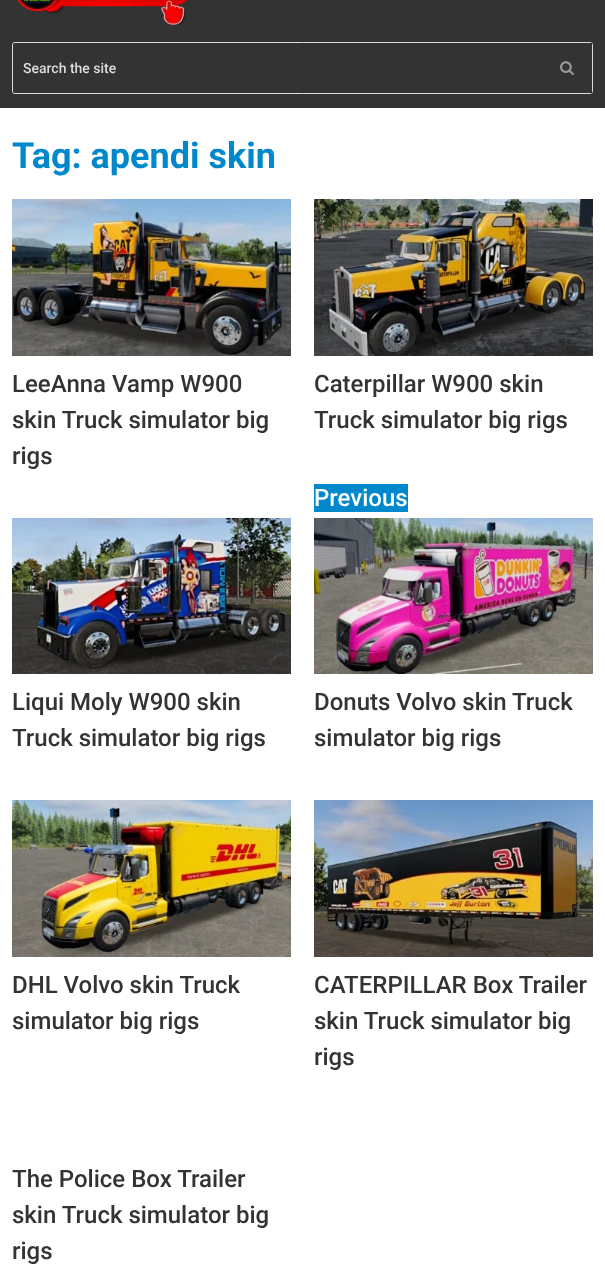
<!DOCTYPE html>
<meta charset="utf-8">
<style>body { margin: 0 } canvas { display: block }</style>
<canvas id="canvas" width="605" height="1285"></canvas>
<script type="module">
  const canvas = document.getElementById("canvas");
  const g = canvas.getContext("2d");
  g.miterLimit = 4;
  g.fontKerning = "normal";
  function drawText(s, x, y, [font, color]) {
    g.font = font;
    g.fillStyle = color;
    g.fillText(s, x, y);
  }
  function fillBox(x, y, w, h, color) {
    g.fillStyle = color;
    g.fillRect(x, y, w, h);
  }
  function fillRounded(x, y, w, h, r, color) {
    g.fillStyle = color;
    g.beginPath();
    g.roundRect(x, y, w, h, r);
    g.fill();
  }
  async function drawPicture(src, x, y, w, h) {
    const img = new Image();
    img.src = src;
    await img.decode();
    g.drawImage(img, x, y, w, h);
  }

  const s1 = ["500 14px Roboto", "#DDDDDD"];
  const s2 = ["bold 36px Roboto", "#0088CC"];
  const s3 = ["500 24px Roboto", "#333333"];
  const s4 = ["500 24px Roboto", "#FFFFFF"];

  fillBox(0, 0, 605, 1285, "#FFFFFF");
  fillBox(0, 0, 605, 108, "#333333");
  await drawPicture("pic1.png", 17, 0, 171, 25);
  g.beginPath();
  g.roundRect(12.5, 42.5, 580, 51, 2.5);
  g.strokeStyle = "#DDDDDD";
  g.stroke();
  fillRounded(13, 43, 579, 50, 3, "#333333");
  drawText("Search the site", 23, 73, s1);
  fillBox(590, 43, 2, 50, "#333333");
  await drawPicture("pic2.png", 560, 61, 14, 15);
  drawText("Tag: apendi skin", 12, 168, s2);
  await drawPicture("pic3.png", 12, 199, 279, 157);
  drawText("LeeAnna Vamp W900", 12, 392, s3);
  drawText("skin Truck simulator big", 12, 428, s3);
  drawText("rigs", 12, 464, s3);
  await drawPicture("pic4.png", 314, 199, 279, 157);
  drawText("Caterpillar W900 skin", 314, 392, s3);
  drawText("Truck simulator big rigs", 314, 428, s3);
  fillBox(314, 484, 94, 28, "#0088CC");
  drawText("Previous", 314, 506, s4);
  await drawPicture("pic5.png", 12, 518, 279, 156);
  drawText("Liqui Moly W900 skin", 12, 710, s3);
  drawText("Truck simulator big rigs", 12, 746, s3);
  await drawPicture("pic6.png", 314, 518, 279, 156);
  drawText("Donuts Volvo skin Truck", 314, 710, s3);
  drawText("simulator big rigs", 314, 746, s3);
  await drawPicture("pic7.png", 12, 800, 279, 157);
  drawText("DHL Volvo skin Truck", 12, 993, s3);
  drawText("simulator big rigs", 12, 1029, s3);
  await drawPicture("pic8.png", 314, 800, 279, 157);
  drawText("CATERPILLAR Box Trailer", 314, 993, s3);
  drawText("skin Truck simulator big", 314, 1029, s3);
  drawText("rigs", 314, 1065, s3);
  drawText("The Police Box Trailer", 12, 1187, s3);
  drawText("skin Truck simulator big", 12, 1223, s3);
  drawText("rigs", 12, 1259, s3);
</script>
